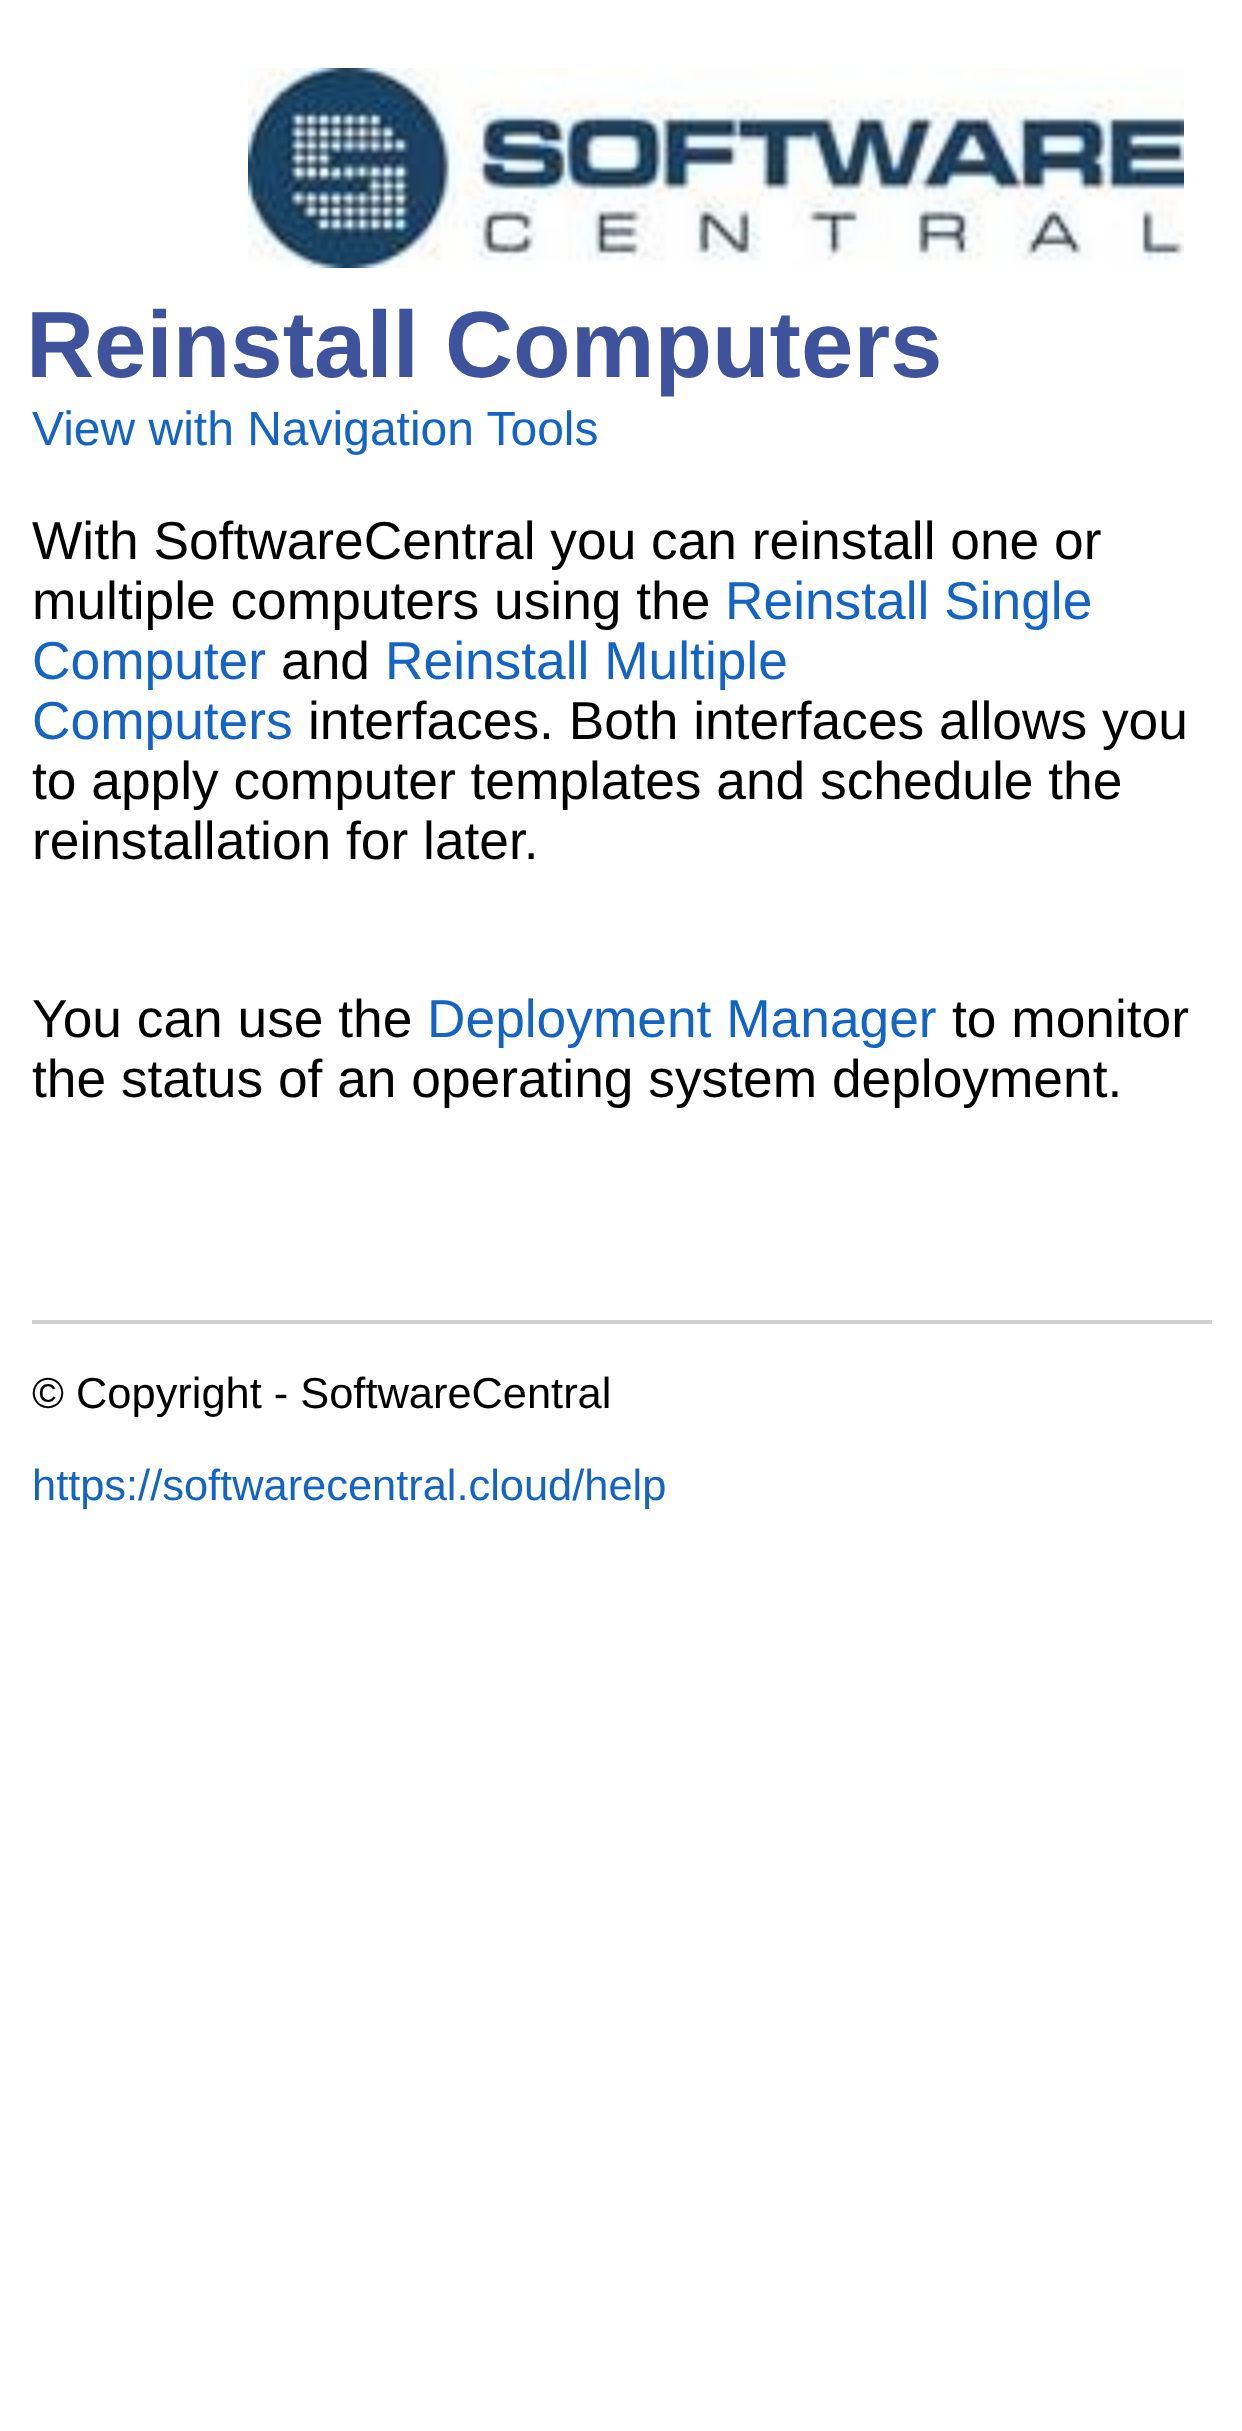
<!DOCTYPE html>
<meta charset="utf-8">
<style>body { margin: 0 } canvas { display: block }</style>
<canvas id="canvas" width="1242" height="2431"></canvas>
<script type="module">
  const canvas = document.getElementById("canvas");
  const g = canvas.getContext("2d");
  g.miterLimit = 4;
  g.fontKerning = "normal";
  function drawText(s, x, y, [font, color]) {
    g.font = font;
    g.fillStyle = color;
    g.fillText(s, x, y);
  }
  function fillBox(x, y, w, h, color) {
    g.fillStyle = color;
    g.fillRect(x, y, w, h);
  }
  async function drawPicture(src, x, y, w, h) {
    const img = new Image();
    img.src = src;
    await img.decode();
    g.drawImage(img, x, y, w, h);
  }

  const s1 = ["bold 94.25px Liberation Sans", "#3F529C"];
  const s2 = ["48px Liberation Sans", "#1364C4"];
  const s3 = ["53.3px Liberation Sans", "#000000"];
  const s4 = ["53.3px Liberation Sans", "#1364C4"];
  const s5 = ["43.4px Liberation Sans", "#000000"];
  const s6 = ["43.4px Liberation Sans", "#1364C4"];

  fillBox(0, 0, 1242, 2431, "#FFFFFF");
  await drawPicture("pic1.png", 248, 68, 936, 200);
  drawText("Reinstall Computers", 26, 377, s1);
  drawText("View with Navigation Tools", 32, 445, s2);
  drawText("With SoftwareCentral you can reinstall one or", 32, 559, s3);
  drawText("multiple computers using the", 32, 619, s3);
  drawText("Reinstall Single", 725, 619, s4);
  drawText("Computer", 32, 679, s4);
  drawText("and", 281, 679, s3);
  drawText("Reinstall Multiple", 385, 679, s4);
  drawText("Computers", 32, 739, s4);
  drawText("interfaces. Both interfaces allows you", 308, 739, s3);
  drawText("to apply computer templates and schedule the", 32, 799, s3);
  drawText("reinstallation for later.", 32, 859, s3);
  drawText("You can use the", 32, 1037, s3);
  drawText("Deployment Manager", 427, 1037, s4);
  drawText("to monitor", 952, 1037, s3);
  drawText("the status of an operating system deployment.", 32, 1097, s3);
  fillBox(32, 1320, 1180, 4, "#D0D0D0");
  drawText("© Copyright - SoftwareCentral", 32, 1408, s5);
  drawText("https://softwarecentral.cloud/help", 32, 1500, s6);
</script>
